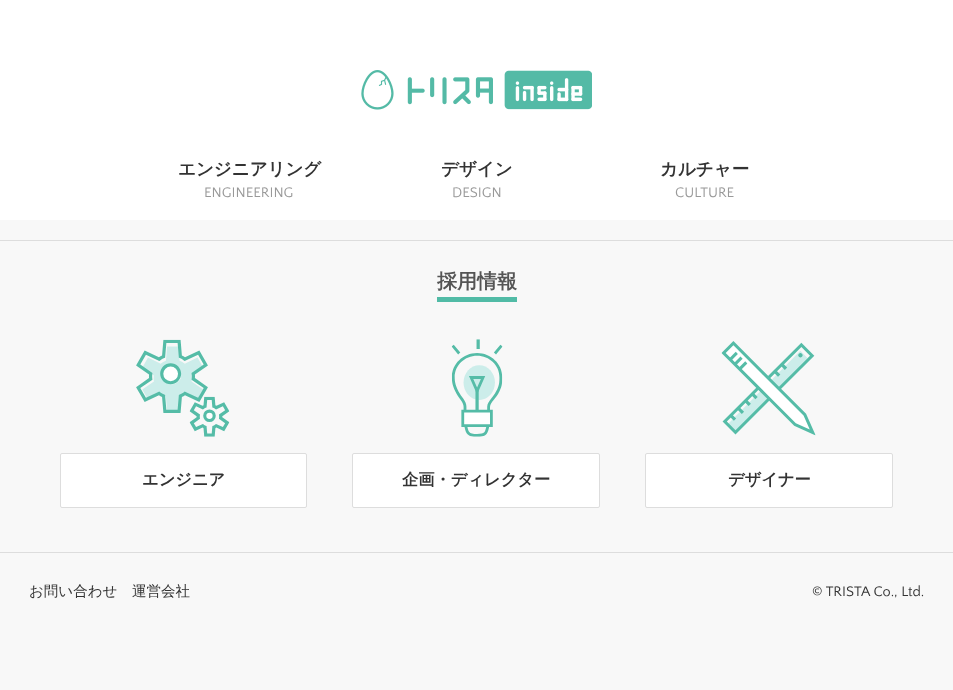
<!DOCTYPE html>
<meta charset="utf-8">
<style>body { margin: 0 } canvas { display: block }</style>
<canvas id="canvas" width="953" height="690"></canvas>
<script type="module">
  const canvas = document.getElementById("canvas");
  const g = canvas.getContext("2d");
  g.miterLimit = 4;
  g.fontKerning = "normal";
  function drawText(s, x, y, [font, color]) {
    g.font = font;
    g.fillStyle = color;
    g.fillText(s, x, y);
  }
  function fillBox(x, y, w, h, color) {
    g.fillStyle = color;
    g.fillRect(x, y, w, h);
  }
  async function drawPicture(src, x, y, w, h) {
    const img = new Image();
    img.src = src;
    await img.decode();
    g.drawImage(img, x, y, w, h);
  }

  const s1 = ["bold 17.5px WenQuanYi Zen Hei", "#333333"];
  const s2 = ["14.5px Quattrocento Sans", "#999999"];
  const s3 = ["bold 20px WenQuanYi Zen Hei", "#555555"];
  const s4 = ["bold 16.25px WenQuanYi Zen Hei", "#333333"];
  const s5 = ["500 14.5px WenQuanYi Zen Hei", "#333333"];
  const s6 = ["14.5px Quattrocento Sans", "#333333"];

  fillBox(0, 0, 953, 690, "#F8F8F8");
  fillBox(0, 0, 953, 220, "#FFFFFF");
  await drawPicture("pic1.png", 361, 70, 231, 40);
  drawText("エンジニアリング", 178, 175, s1);
  drawText("ENGINEERING", 204, 197, s2);
  drawText("デザイン", 441, 175, s1);
  drawText("DESIGN", 452, 197, s2);
  drawText("カルチャー", 660, 175, s1);
  drawText("CULTURE", 675, 197, s2);
  fillBox(0, 240, 953, 1, "#DDDDDD");
  fillBox(0, 552, 953, 1, "#DDDDDD");
  fillBox(437, 297, 80, 5, "#51BBA6");
  drawText("採用情報", 437, 288, s3);
  await drawPicture("pic2.png", 136, 339, 94, 98);
  g.fillStyle = "#FFFFFF";
  g.beginPath();
  g.roundRect(60.5, 453.5, 246, 54, 1.5);
  g.fill();
  g.strokeStyle = "#DDDDDD";
  g.stroke();
  drawText("エンジニア", 142, 485, s4);
  await drawPicture("pic3.png", 451, 339, 52, 98);
  g.fillStyle = "#FFFFFF";
  g.beginPath();
  g.roundRect(352.5, 453.5, 247, 54, 1.5);
  g.fill();
  g.stroke();
  drawText("企画・ディレクター", 402, 485, s4);
  await drawPicture("pic4.png", 721, 341, 95, 95);
  g.fillStyle = "#FFFFFF";
  g.beginPath();
  g.roundRect(645.5, 453.5, 247, 54, 1.5);
  g.fill();
  g.stroke();
  drawText("デザイナー", 728, 485, s4);
  drawText("お問い合わせ", 29, 596, s5);
  drawText("運営会社", 132, 596, s5);
  drawText("© TRISTA Co., Ltd.", 812, 596, s6);
</script>
